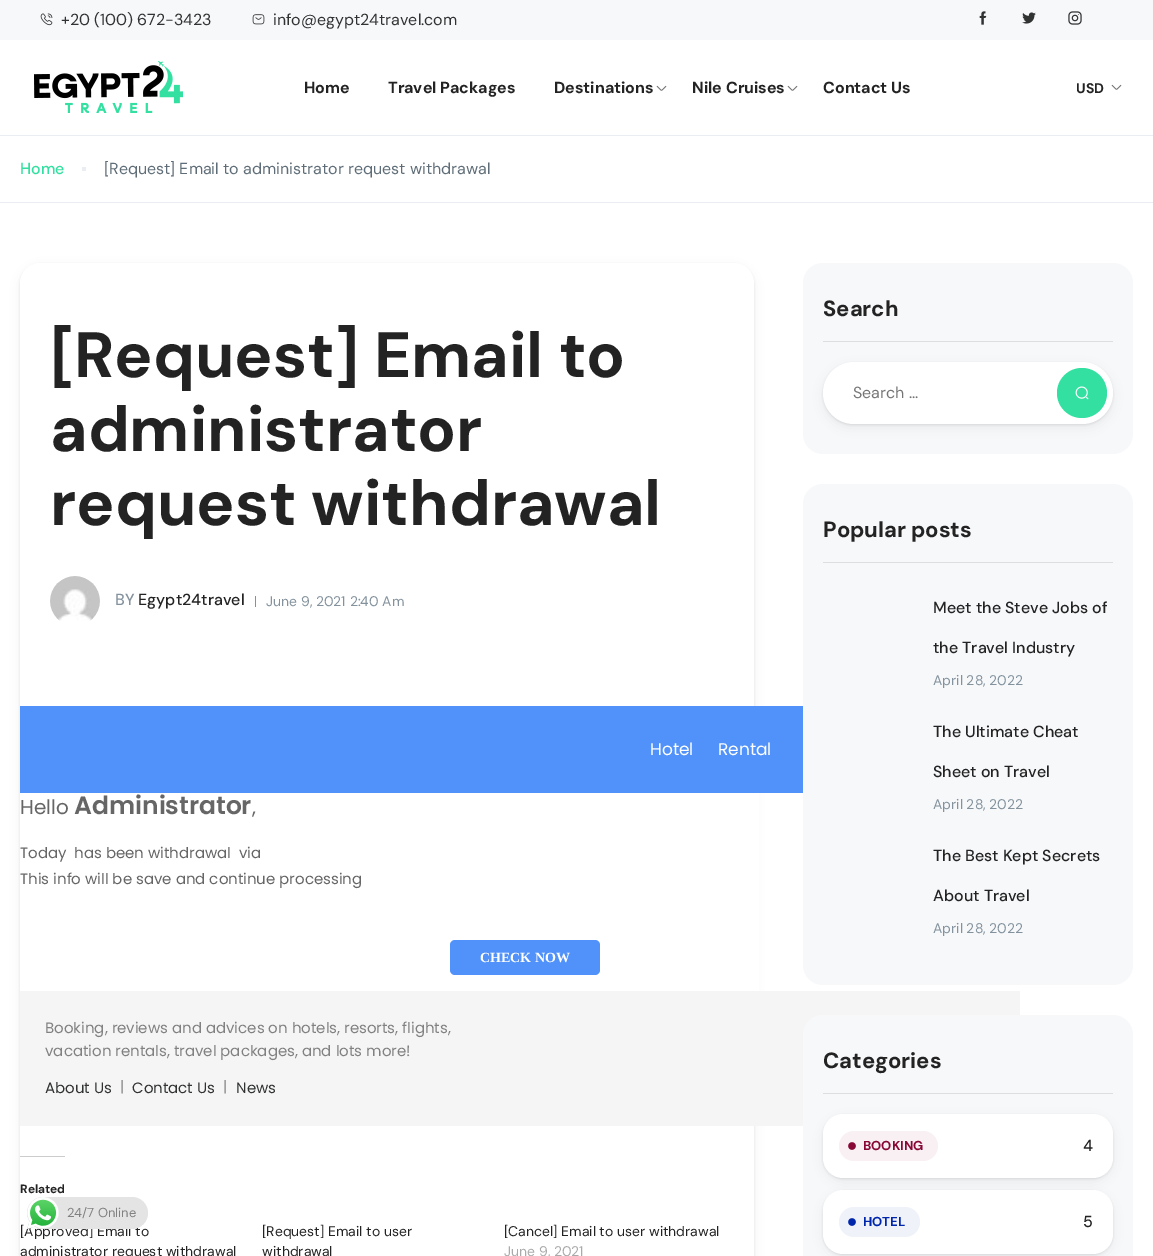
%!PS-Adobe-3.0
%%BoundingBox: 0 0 1153 1256
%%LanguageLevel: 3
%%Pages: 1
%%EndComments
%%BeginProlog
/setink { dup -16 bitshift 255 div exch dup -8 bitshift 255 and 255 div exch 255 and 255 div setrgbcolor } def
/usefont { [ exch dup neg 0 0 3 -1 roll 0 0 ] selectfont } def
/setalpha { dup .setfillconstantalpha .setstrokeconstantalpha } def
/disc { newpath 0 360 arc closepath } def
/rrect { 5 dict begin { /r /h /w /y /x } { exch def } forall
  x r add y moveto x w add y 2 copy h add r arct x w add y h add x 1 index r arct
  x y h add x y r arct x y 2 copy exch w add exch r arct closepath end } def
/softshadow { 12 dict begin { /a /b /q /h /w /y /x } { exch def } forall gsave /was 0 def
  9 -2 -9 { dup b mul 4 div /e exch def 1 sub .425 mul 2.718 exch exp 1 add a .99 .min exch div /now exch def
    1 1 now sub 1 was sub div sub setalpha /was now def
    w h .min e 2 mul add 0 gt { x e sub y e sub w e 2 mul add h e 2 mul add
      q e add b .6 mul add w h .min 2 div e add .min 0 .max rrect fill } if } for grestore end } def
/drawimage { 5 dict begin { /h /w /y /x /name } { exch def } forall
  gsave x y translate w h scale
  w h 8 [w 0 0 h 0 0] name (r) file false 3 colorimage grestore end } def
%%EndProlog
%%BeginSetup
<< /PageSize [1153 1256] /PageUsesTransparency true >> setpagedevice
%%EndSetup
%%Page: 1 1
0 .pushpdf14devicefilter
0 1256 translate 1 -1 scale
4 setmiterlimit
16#FFFFFF setink
0 0 1153 1256 rectfill
16#F7F8FA setink
0 0 1153 40 rectfill
(img1.raw) 40 13 13 13 drawimage
/DMSans-Regular 16 usefont
16#313232 setink
61 25 moveto (+20 \(100\) 672-3423) show
(img2.raw) 252 14 13 11 drawimage
273 25 moveto (info@egypt24travel.com) show
(img3.raw) 979 11 8 14 drawimage
(img4.raw) 1022 12 14 12 drawimage
(img5.raw) 1068 11 14 14 drawimage
16#EAEEF3 setink
0 135 1153 1 rectfill
(img6.raw) 34 61 149 52 drawimage
/DMSans-Bold 16 usefont
16#232323 setink
[
    [(Home) 304 93]
    [(Travel Packages) 388 93]
    [(Destinations) 554 93]
] { aload pop moveto show } forall
(img7.raw) 656 85 11 6 drawimage
692 93 moveto (Nile Cruises) show
(img7.raw) 787 85 11 6 drawimage
823 93 moveto (Contact Us) show
/DMSans-Bold 14 usefont
1076 93 moveto (USD) show
(img7.raw) 1111 84 11 6 drawimage
16#EAEEF3 setink
0 202 1153 1 rectfill
/DMSans-Medium 16 usefont
16#34E0A1 setink
20 174 moveto (Home) show
16#EAEEF3 setink
82 167 4 4 rectfill
/DMSans-Regular 16 usefont
16#5E6D77 setink
104 174 moveto ([Request] Email to administrator request withdrawal) show
16#000000 setink
20 267 734 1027 20 6 0.05 softshadow
20 264 734 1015 20 1 0.08 softshadow
16#FFFFFF setink
20 263 734 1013 20 rrect fill
/DMSans-Bold 64 usefont
16#232323 setink
[
    [([Request] Email to) 50 377]
    [(administrator) 50 451]
    [(request withdrawal) 50 525]
] { aload pop moveto show } forall
(img8.raw) 50 576 50 45 drawimage
/DMSans-Medium 16 usefont
16#83929D setink
115 605 moveto (BY) show
16#232323 setink
138 605 moveto (Egypt24travel) show
16#83929D setink
255 596 1 11 rectfill
/DMSans-Regular 14 usefont
266 606 moveto (June 9, 2021 2:40 Am) show
16#5192FA setink
20 706 783 87 rectfill
/Poppins-Regular 17 usefont
16#FFFFFF setink
650 755 moveto (Hotel) show
718 755 moveto (Rental) show
754 793 5 198 rectfill
/Poppins-Regular 20 usefont
16#666666 setink
20 814 moveto (Hello) show
/Poppins-SemiBold 25 usefont
74 814 moveto (Administrator) show
/Poppins-Regular 20 usefont
252 814 moveto (,) show
/Poppins-Regular 15 usefont
[
    [(Today) 20 858]
    [(has been withdrawal) 74 858]
    [(via) 239 858]
    [(This info will be save and continue processing) 20 884]
] { aload pop moveto show } forall
16#5192FA setink
450 940 150 35 5 rrect fill
/LiberationSerif-Bold 14 usefont
16#FFFFFF setink
480 962 moveto (CHECK NOW) show
16#F5F5F5 setink
20 991 1000 135 rectfill
/Poppins-Regular 15 usefont
16#818181 setink
45 1033 moveto (Booking, reviews and advices on hotels, resorts, flights,) show
45 1056 moveto (vacation rentals, travel packages, and lots more!) show
16#313232 setink
45 1093 moveto (About Us) show
16#818181 setink
120 1092 moveto (|) show
16#313232 setink
132 1093 moveto (Contact Us) show
16#818181 setink
223 1092 moveto (|) show
16#313232 setink
236 1093 moveto (News) show
16#CCCCCC setink
20 1156 45 1 rectfill
/DMSans-Bold 12 usefont
16#232323 setink
20 1193 moveto (Related) show
/DMSans-Regular 14 usefont
[
    [([Approved] Email to) 20 1236]
    [(administrator request withdrawal) 20 1256]
    [([Request] Email to user) 262 1236]
    [(withdrawal) 262 1256]
    [([Cancel] Email to user withdrawal) 504 1236]
] { aload pop moveto show } forall
16#AAAAAA setink
504 1256 moveto (June 9, 2021) show
16#F7F8FA setink
803 263 330 191 20 rrect fill
16#DEDEDE setink
823 341 290 1 rectfill
/DMSans-Bold 22 usefont
16#232323 setink
823 316 moveto (Search) show
16#000000 setink
823 366 290 62 31 6 0.05 softshadow
823 363 290 62 31 1 0.08 softshadow
16#FFFFFF setink
823 362 290 62 31 rrect fill
/DMSans-Regular 16 usefont
16#757575 setink
853 398 moveto (Search ...) show
16#34E0A1 setink
1082 393 25 disc fill
(img9.raw) 1075 386 14 14 drawimage
16#F7F8FA setink
803 484 330 501 20 rrect fill
16#DEDEDE setink
823 562 290 1 rectfill
/DMSans-Bold 22 usefont
16#232323 setink
823 537 moveto (Popular posts) show
/DMSans-Medium 16 usefont
933 613 moveto (Meet the Steve Jobs of) show
933 653 moveto (the Travel Industry) show
/DMSans-Regular 14 usefont
16#83929D setink
933 685 moveto (April 28, 2022) show
/DMSans-Medium 16 usefont
16#232323 setink
933 737 moveto (The Ultimate Cheat) show
933 777 moveto (Sheet on Travel) show
/DMSans-Regular 14 usefont
16#83929D setink
933 809 moveto (April 28, 2022) show
/DMSans-Medium 16 usefont
16#232323 setink
933 861 moveto (The Best Kept Secrets) show
933 901 moveto (About Travel) show
/DMSans-Regular 14 usefont
16#83929D setink
933 933 moveto (April 28, 2022) show
16#F7F8FA setink
803 1015 330 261 20 rrect fill
16#DEDEDE setink
823 1093 290 1 rectfill
/DMSans-Bold 22 usefont
16#232323 setink
823 1068 moveto (Categories) show
16#000000 setink
823 1118 290 64 20 6 0.05 softshadow
823 1115 290 64 20 1 0.08 softshadow
16#FFFFFF setink
823 1114 290 64 20 rrect fill
16#F8F0F3 setink
839 1131 99 30 15 rrect fill
(img10.raw) 848 1142 8 8 drawimage
/DMSans-Bold 13 usefont
16#880735 setink
863 1150 moveto (BOOKING) show
/DMSans-Medium 16 usefont
16#232323 setink
1083 1151 moveto (4) show
16#000000 setink
823 1194 290 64 20 6 0.05 softshadow
823 1191 290 64 20 1 0.08 softshadow
16#FFFFFF setink
823 1190 290 64 20 rrect fill
16#F0F2FA setink
839 1207 81 30 15 rrect fill
(img11.raw) 848 1218 8 8 drawimage
/DMSans-Bold 13 usefont
16#0026AB setink
863 1226 moveto (HOTEL) show
/DMSans-Medium 16 usefont
16#232323 setink
1083 1227 moveto (5) show
16#E4E4E4 setink
27 1197 121 32 16 rrect fill
(img12.raw) 27 1197 32 32 drawimage
/DMSans-Regular 13 usefont
16#818181 setink
67 1217 moveto (24/7 Online) show
.poppdf14devicefilter showpage
%%EOF
